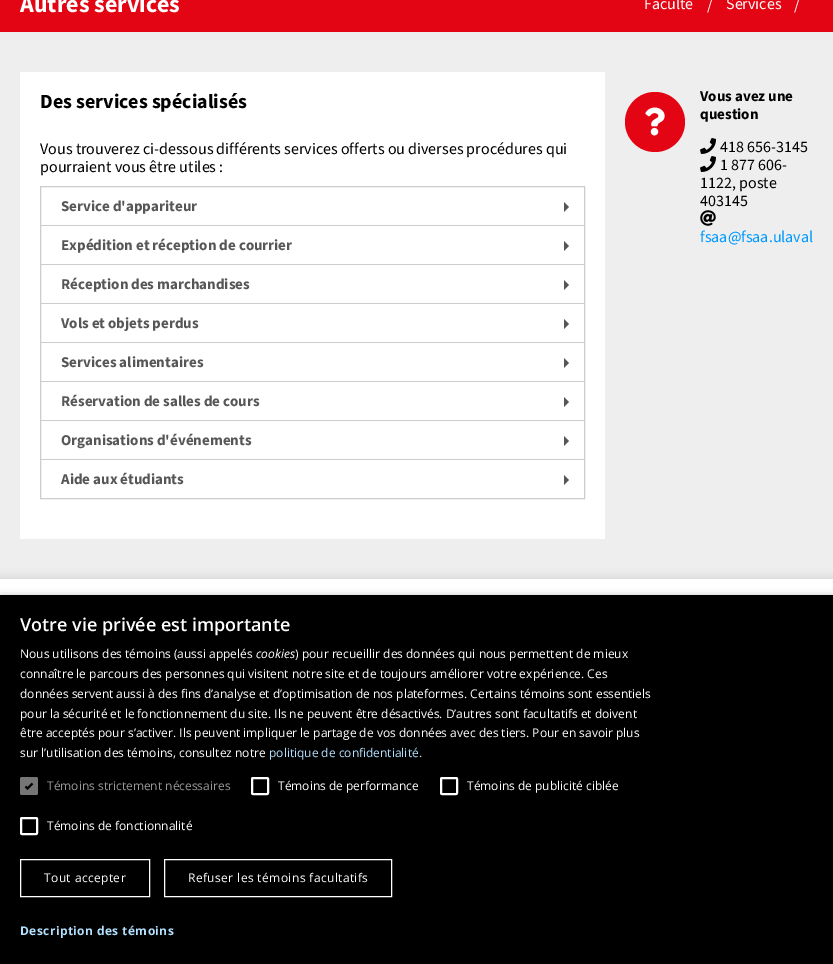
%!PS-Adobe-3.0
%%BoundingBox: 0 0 833 964
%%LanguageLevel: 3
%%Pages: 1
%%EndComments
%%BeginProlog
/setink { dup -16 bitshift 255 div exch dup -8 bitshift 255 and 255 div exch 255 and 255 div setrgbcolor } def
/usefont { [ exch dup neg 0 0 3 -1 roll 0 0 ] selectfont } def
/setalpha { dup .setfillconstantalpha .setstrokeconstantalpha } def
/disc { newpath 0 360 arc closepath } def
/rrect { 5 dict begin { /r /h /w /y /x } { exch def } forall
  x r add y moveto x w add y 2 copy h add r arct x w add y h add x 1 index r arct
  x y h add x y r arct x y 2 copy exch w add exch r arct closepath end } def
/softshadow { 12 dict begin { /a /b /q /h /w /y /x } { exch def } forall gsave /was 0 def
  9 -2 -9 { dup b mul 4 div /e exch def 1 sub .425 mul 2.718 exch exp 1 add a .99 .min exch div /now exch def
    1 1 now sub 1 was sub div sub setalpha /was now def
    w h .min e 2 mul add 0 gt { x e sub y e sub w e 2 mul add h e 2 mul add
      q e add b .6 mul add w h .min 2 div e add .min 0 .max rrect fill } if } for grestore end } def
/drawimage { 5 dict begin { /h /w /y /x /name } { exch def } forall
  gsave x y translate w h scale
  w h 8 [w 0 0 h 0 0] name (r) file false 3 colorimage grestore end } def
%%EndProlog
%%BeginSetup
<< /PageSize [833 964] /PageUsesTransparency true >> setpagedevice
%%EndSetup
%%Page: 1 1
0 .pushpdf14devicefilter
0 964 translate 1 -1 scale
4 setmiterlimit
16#EEEEEE setink
0 0 833 964 rectfill
16#E30513 setink
0 0 833 32 rectfill
/SourceSans3-Bold 24 usefont
16#FFFFFF setink
20 12 moveto (Autres services) show
/SourceSans3-Regular 16 usefont
[
    [(Faculté) 644 9]
    [(/) 707 10]
    [(Services) 726 9]
    [(/) 794 10]
] { aload pop moveto show } forall
20 72 585 467 rectfill
/SourceSans3-Bold 20 usefont
16#000000 setink
40 108 moveto (Des services spécialisés) show
/SourceSans3-Regular 16 usefont
40 154 moveto (Vous trouverez ci-dessous différents services offerts ou diverses procédures qui) show
40 172 moveto (pourraient vous être utiles :) show
16#CCCCCC setink
40.5 186.5 544 312 rectstroke
/SourceSans3-Bold 15 usefont
16#565656 setink
61 211 moveto (Service d'appariteur) show
564 212 moveto 564 202 lineto 569 207 lineto closepath fill
16#CCCCCC setink
41 225 543 1 rectfill
16#565656 setink
61 250 moveto (Expédition et réception de courrier) show
564 251 moveto 564 241 lineto 569 246 lineto closepath fill
16#CCCCCC setink
41 264 543 1 rectfill
16#565656 setink
61 289 moveto (Réception des marchandises) show
564 290 moveto 564 280 lineto 569 285 lineto closepath fill
16#CCCCCC setink
41 303 543 1 rectfill
16#565656 setink
61 328 moveto (Vols et objets perdus) show
564 329 moveto 564 319 lineto 569 324 lineto closepath fill
16#CCCCCC setink
41 342 543 1 rectfill
16#565656 setink
61 367 moveto (Services alimentaires) show
564 368 moveto 564 358 lineto 569 363 lineto closepath fill
16#CCCCCC setink
41 381 543 1 rectfill
16#565656 setink
61 406 moveto (Réservation de salles de cours) show
564 407 moveto 564 397 lineto 569 402 lineto closepath fill
16#CCCCCC setink
41 420 543 1 rectfill
16#565656 setink
61 445 moveto (Organisations d'événements) show
564 446 moveto 564 436 lineto 569 441 lineto closepath fill
16#CCCCCC setink
41 459 543 1 rectfill
16#565656 setink
61 484 moveto (Aide aux étudiants) show
564 485 moveto 564 475 lineto 569 480 lineto closepath fill
16#E30513 setink
655 122 30 disc fill
(img1.raw) 645 107 20 29 drawimage
16#000000 setink
700 101 moveto (Vous avez une) show
700 119 moveto (question) show
(img2.raw) 700 138 16 16 drawimage
/SourceSans3-Regular 16 usefont
720 152 moveto (418 656-3145) show
(img2.raw) 700 156 16 16 drawimage
[
    [(1 877 606-) 720 170]
    [(1122, poste) 700 188]
    [(403145) 700 206]
] { aload pop moveto show } forall
(img3.raw) 700 210 16 16 drawimage
16#0099FF setink
700 242 moveto (fsaa@fsaa.ulaval) show
16#000000 setink
0 579 833 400 0 5 0.15 softshadow
16#FFFFFF setink
0 579 833 16 rectfill
16#000000 setink
1 597 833 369 0 4 0.35 softshadow
0 595 833 369 rectfill
/OpenSans-SemiBold 18 usefont
16#FFFFFF setink
20 631 moveto (Votre vie privée est importante) show
/OpenSans-Regular 12 usefont
20 658 moveto (Nous utilisons des témoins \(aussi appelés) show
/OpenSans-Italic 12 usefont
256 658 moveto (cookies) show
/OpenSans-Regular 12 usefont
[
    [(\) pour recueillir des données qui nous permettent de mieux) 295 658]
    [(connaître le parcours des personnes qui visitent notre site et de toujours améliorer votre expérience. Ces) 20 678]
    [(données servent aussi à des fins d’analyse et d’optimisation de nos plateformes. Certains témoins sont essentiels) 20 698]
    [(pour la sécurité et le fonctionnement du site. Ils ne peuvent être désactivés. D’autres sont facultatifs et doivent) 20 718]
    [(être acceptés pour s’activer. Ils peuvent impliquer le partage de vos données avec des tiers. Pour en savoir plus) 20 737]
    [(sur l’utilisation des témoins, consultez notre) 20 757]
] { aload pop moveto show } forall
16#B2E0FF setink
269 757 moveto (politique de confidentialité.) show
16#767676 setink
20 777 18 18 2 rrect fill
16#000000 setink
1.8 setlinewidth
25.5 786.5 moveto 27.5 788.5 lineto 32.5 783.5 lineto stroke
16#999999 setink
47 790 moveto (Témoins strictement nécessaires) show
16#FFFFFF setink
2 setlinewidth
252 778 16 16 1 rrect stroke
278 790 moveto (Témoins de performance) show
441 778 16 16 1 rrect stroke
467 790 moveto (Témoins de publicité ciblée) show
21 818 16 16 1 rrect stroke
47 830 moveto (Témoins de fonctionnalité) show
1 setlinewidth
20.5 859.5 129 37 rectstroke
44 882 moveto 0.4 0 (Tout accepter) ashow
164.5 859.5 227 37 rectstroke
188 882 moveto 0.4 0 (Refuser les témoins facultatifs) ashow
/OpenSans-Bold 12 usefont
16#B2E0FF setink
20 935 moveto 0.4 0 (Description des témoins) ashow
.poppdf14devicefilter showpage
%%EOF
